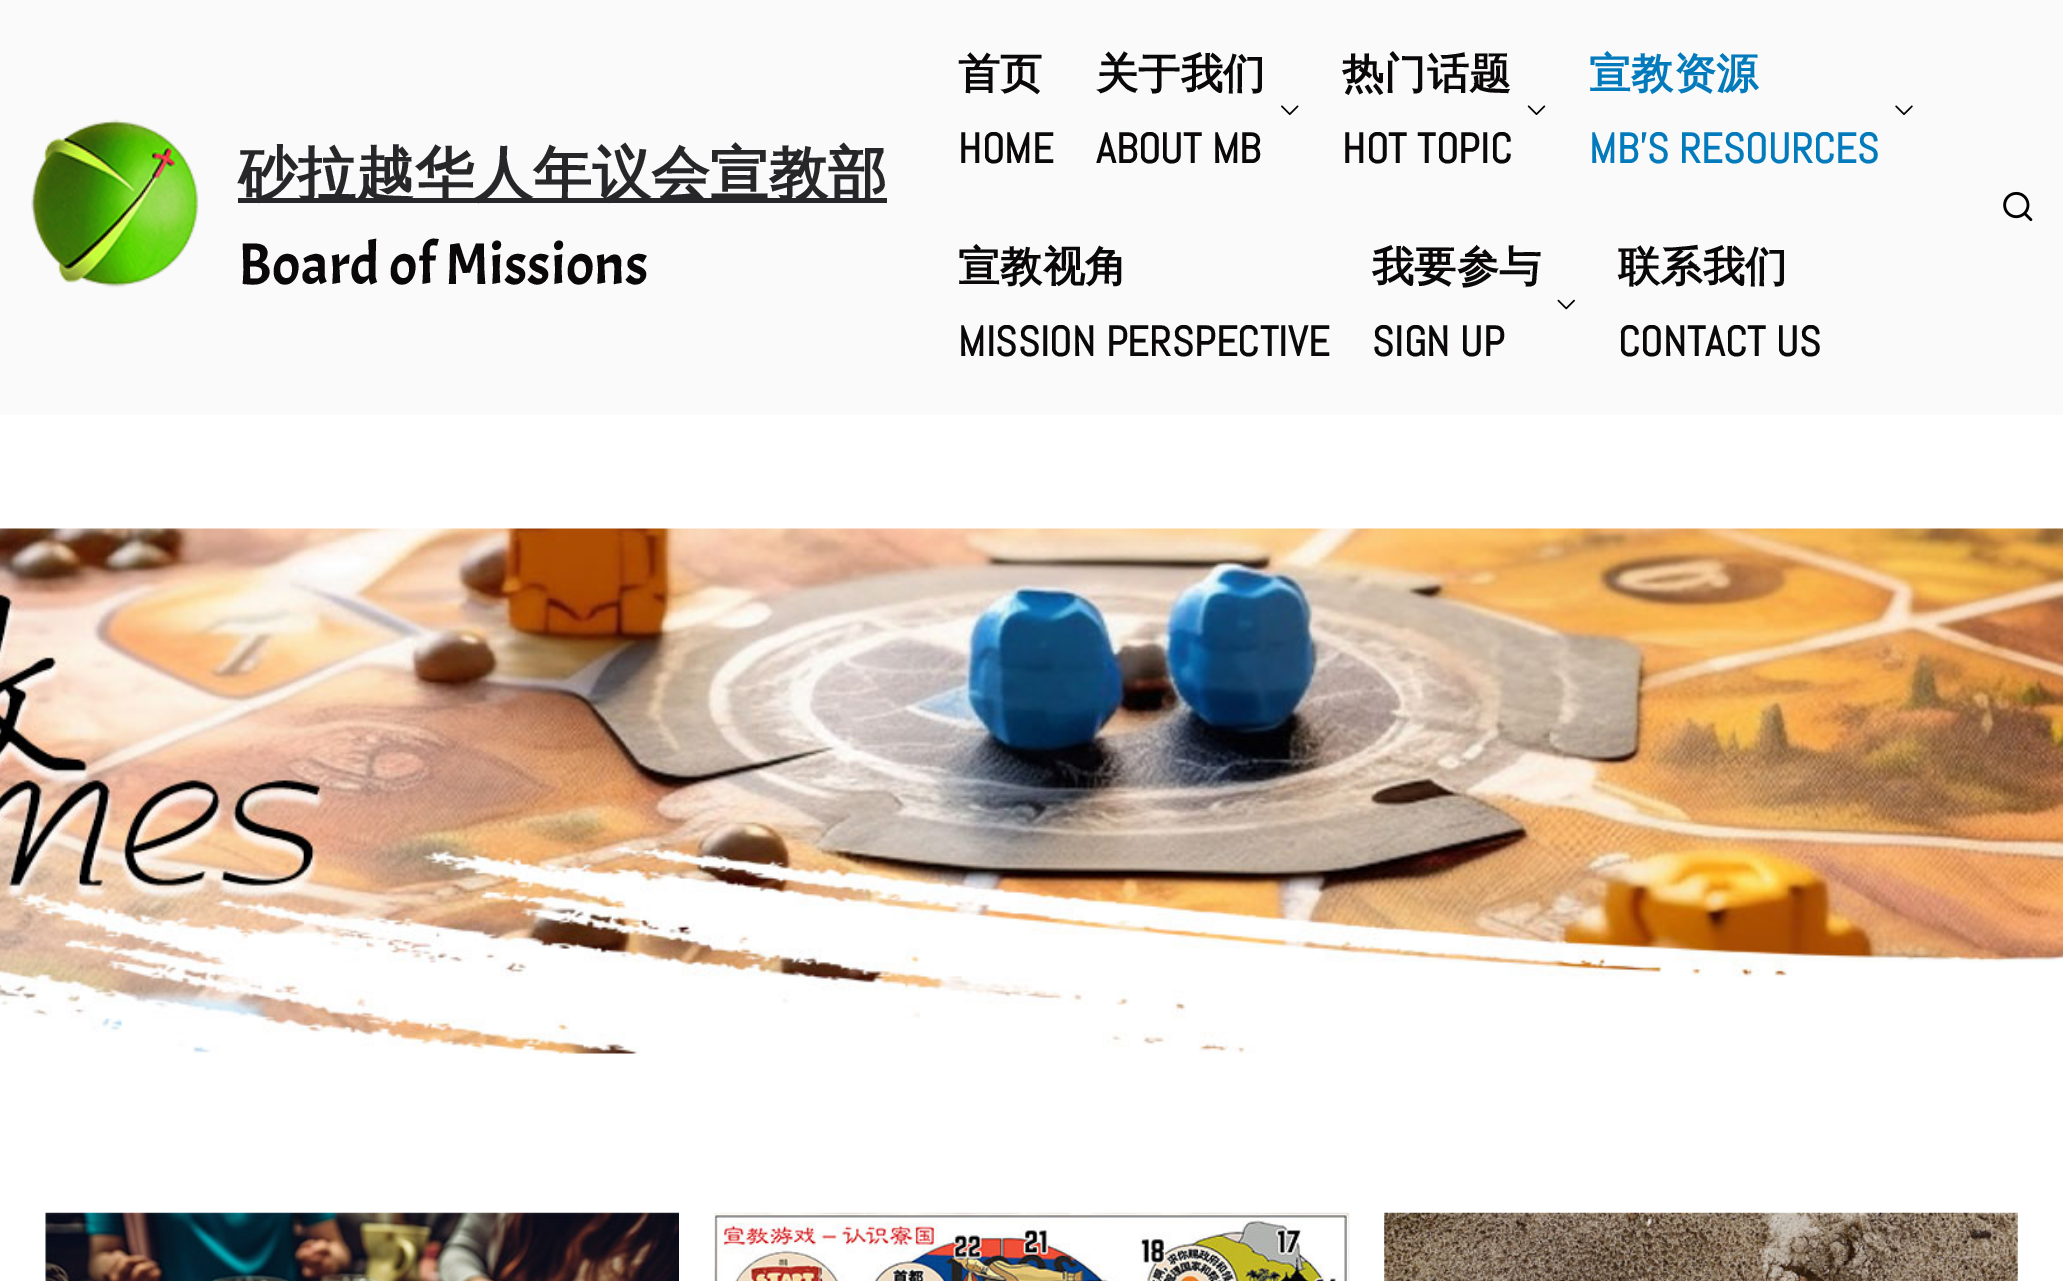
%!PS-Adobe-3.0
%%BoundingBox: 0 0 2063 1281
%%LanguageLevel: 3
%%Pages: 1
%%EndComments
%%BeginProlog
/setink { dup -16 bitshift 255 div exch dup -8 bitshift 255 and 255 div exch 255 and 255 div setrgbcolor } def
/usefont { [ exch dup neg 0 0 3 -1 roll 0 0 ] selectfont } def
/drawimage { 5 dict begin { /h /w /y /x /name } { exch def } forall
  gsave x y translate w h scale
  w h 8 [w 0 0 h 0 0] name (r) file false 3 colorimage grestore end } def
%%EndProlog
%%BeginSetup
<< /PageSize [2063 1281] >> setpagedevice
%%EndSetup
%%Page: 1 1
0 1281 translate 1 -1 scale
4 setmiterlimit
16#FAFAFA setink
0 0 2063 1281 rectfill
(img1.raw) 31 119 168 169 drawimage
16#27272A setink
238 198 649 5 rectfill
/WenQuanYiZenHei-Bold 58.75 usefont
238 194 moveto 0.3 0 (砂拉越华人年议会宣教部) ashow
/Acme-Regular 58.75 usefont
16#0A0808 setink
238 284 moveto 0.3 0 (Board of Missions) ashow
/WenQuanYiZenHei-Bold 42 usefont
958 88 moveto 0.3 0 (首页) ashow
/Abel-Bold 42 usefont
958 163 moveto 0.3 0 (HOME) ashow
/WenQuanYiZenHei-Bold 42 usefont
1096 88 moveto 0.3 0 (关于我们) ashow
(img2.raw) 1281 105 18 10 drawimage
/Abel-Bold 42 usefont
1096 163 moveto 0.3 0 (ABOUT MB) ashow
/WenQuanYiZenHei-Bold 42 usefont
1342 88 moveto 0.3 0 (热门话题) ashow
(img3.raw) 1527 105 19 10 drawimage
/Abel-Bold 42 usefont
1342 163 moveto 0.3 0 (HOT TOPIC) ashow
/WenQuanYiZenHei-Bold 42 usefont
16#027ABB setink
1589 88 moveto 0.3 0 (宣教资源) ashow
(img4.raw) 1895 105 18 10 drawimage
/Abel-Bold 42 usefont
1589 163 moveto 0.3 0 (MB’S RESOURCES) ashow
/WenQuanYiZenHei-Bold 42 usefont
16#0A0808 setink
958 281 moveto 0.3 0 (宣教视角) ashow
/Abel-Bold 42 usefont
958 356 moveto 0.3 0 (MISSION PERSPECTIVE) ashow
/WenQuanYiZenHei-Bold 42 usefont
1372 281 moveto 0.3 0 (我要参与) ashow
(img5.raw) 1557 299 18 11 drawimage
/Abel-Bold 42 usefont
1372 356 moveto 0.3 0 (SIGN UP) ashow
/WenQuanYiZenHei-Bold 42 usefont
1618 281 moveto 0.3 0 (联系我们) ashow
/Abel-Bold 42 usefont
1618 356 moveto 0.3 0 (CONTACT US) ashow
(img6.raw) 2003 191 30 31 drawimage
16#FFFFFF setink
0 415 2063 866 rectfill
(img7.raw) 0 528 2063 526 drawimage
(img8.raw) 45 1212 634 69 drawimage
(img9.raw) 714 1212 636 69 drawimage
(img10.raw) 1384 1212 634 69 drawimage
showpage
%%EOF
